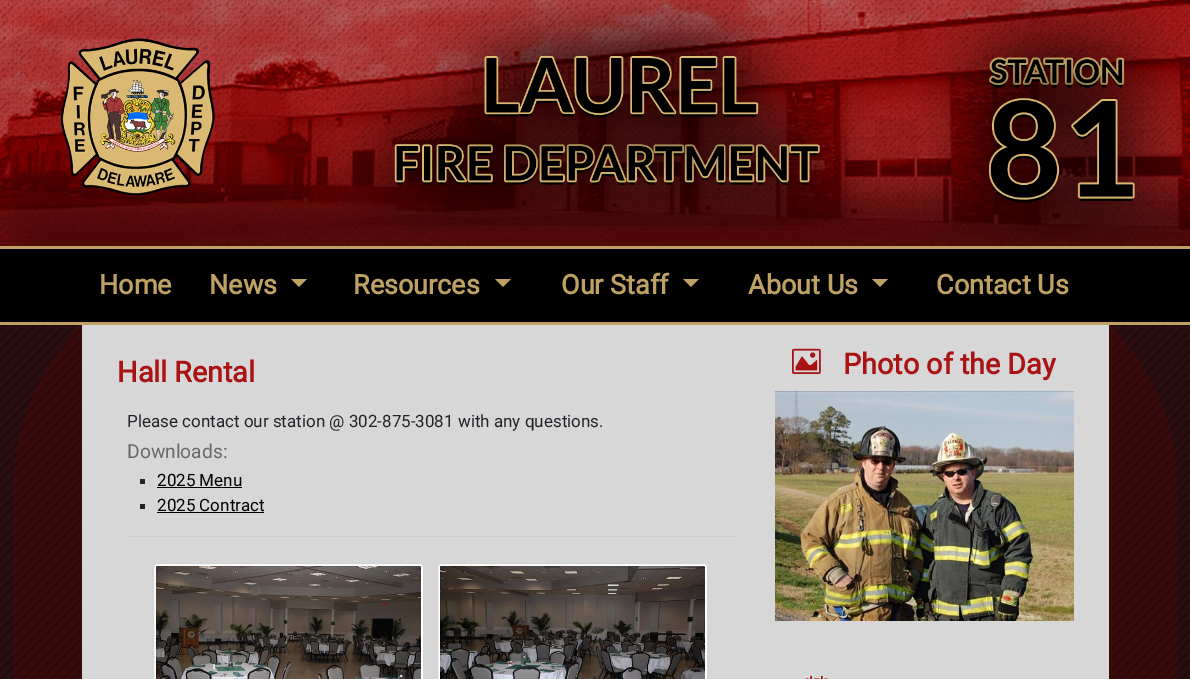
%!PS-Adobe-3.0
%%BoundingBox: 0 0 1190 679
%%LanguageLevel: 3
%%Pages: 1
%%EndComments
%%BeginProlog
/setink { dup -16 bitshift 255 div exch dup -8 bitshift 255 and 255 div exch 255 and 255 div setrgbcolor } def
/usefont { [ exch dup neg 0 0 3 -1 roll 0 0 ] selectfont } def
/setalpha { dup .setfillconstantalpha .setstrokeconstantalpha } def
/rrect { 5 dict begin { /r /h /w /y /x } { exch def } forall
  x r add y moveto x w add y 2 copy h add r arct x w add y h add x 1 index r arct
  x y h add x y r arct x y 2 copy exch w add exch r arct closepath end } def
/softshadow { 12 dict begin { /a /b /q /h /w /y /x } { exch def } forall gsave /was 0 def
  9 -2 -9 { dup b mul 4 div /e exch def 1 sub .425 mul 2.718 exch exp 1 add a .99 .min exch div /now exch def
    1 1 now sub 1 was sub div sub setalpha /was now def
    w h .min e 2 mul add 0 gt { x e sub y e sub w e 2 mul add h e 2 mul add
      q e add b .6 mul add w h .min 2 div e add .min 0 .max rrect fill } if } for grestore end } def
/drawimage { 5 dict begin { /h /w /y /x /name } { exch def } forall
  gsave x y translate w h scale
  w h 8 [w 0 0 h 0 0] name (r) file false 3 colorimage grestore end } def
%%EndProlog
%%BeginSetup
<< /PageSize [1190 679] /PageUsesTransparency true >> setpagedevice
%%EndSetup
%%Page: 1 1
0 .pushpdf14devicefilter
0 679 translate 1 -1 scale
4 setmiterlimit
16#FFFFFF setink
0 0 1190 679 rectfill
(img1.raw) 0 325 1190 354 drawimage
(img2.raw) 0 0 1190 246 drawimage
16#580202 setink
82 325 1027 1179 0 275 1 softshadow
(img3.raw) 61 38 154 158 drawimage
(img4.raw) 335 0 540 226 drawimage
(img5.raw) 919 0 271 246 drawimage
[
    [0 249 1190 73 16#000000]
    [0 246 1190 3 16#BEA163]
    [0 322 1190 3 16#BEA163]
] { aload pop setink rectfill } forall
/Roboto-Bold 27 usefont
99 294 moveto (Home) show
209 294 moveto (News) show
291 279 moveto 307 279 lineto 299 287 lineto closepath fill
353 294 moveto (Resources) show
495 279 moveto 511 279 lineto 503 287 lineto closepath fill
561 294 moveto (Our Staff) show
683 279 moveto 699 279 lineto 691 287 lineto closepath fill
748 294 moveto (About Us) show
872 279 moveto 888 279 lineto 880 287 lineto closepath fill
936 294 moveto (Contact Us) show
16#D7D7D7 setink
82 325 1027 354 rectfill
/Roboto-Bold 28.75 usefont
16#AA1313 setink
117 382 moveto (Hall Rental) show
/Roboto-Regular 17 usefont
16#212529 setink
127 427 moveto (Please contact our station @ 302-875-3081 with any questions.) show
/Roboto-Regular 19.25 usefont
16#696969 setink
127 458 moveto (Downloads:) show
16#212529 setink
140 479 5 5 rectfill
/Roboto-Regular 17 usefont
16#000000 setink
157 486 moveto (2025 Menu) show
157 487 85 1 rectfill
16#212529 setink
140 504 5 5 rectfill
16#000000 setink
157 511 moveto (2025 Contract) show
157 512 107 1 rectfill
16#CCCCCC setink
127 536 608 1 rectfill
16#FFFFFF setink
153 563 271 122 4 rrect gsave fill grestore
16#D5D5D5 setink
2 setlinewidth
stroke
(img6.raw) 156 566 265 113 drawimage
16#FFFFFF setink
437 563 271 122 4 rrect gsave fill grestore
16#D5D5D5 setink
stroke
(img7.raw) 440 566 265 113 drawimage
(img8.raw) 792 348 29 26 drawimage
/Roboto-Bold 28.75 usefont
16#AA1313 setink
843 374 moveto (Photo of the Day) show
(img9.raw) 775 391 299 230 drawimage
(img10.raw) 805 675 23 4 drawimage
.poppdf14devicefilter showpage
%%EOF
